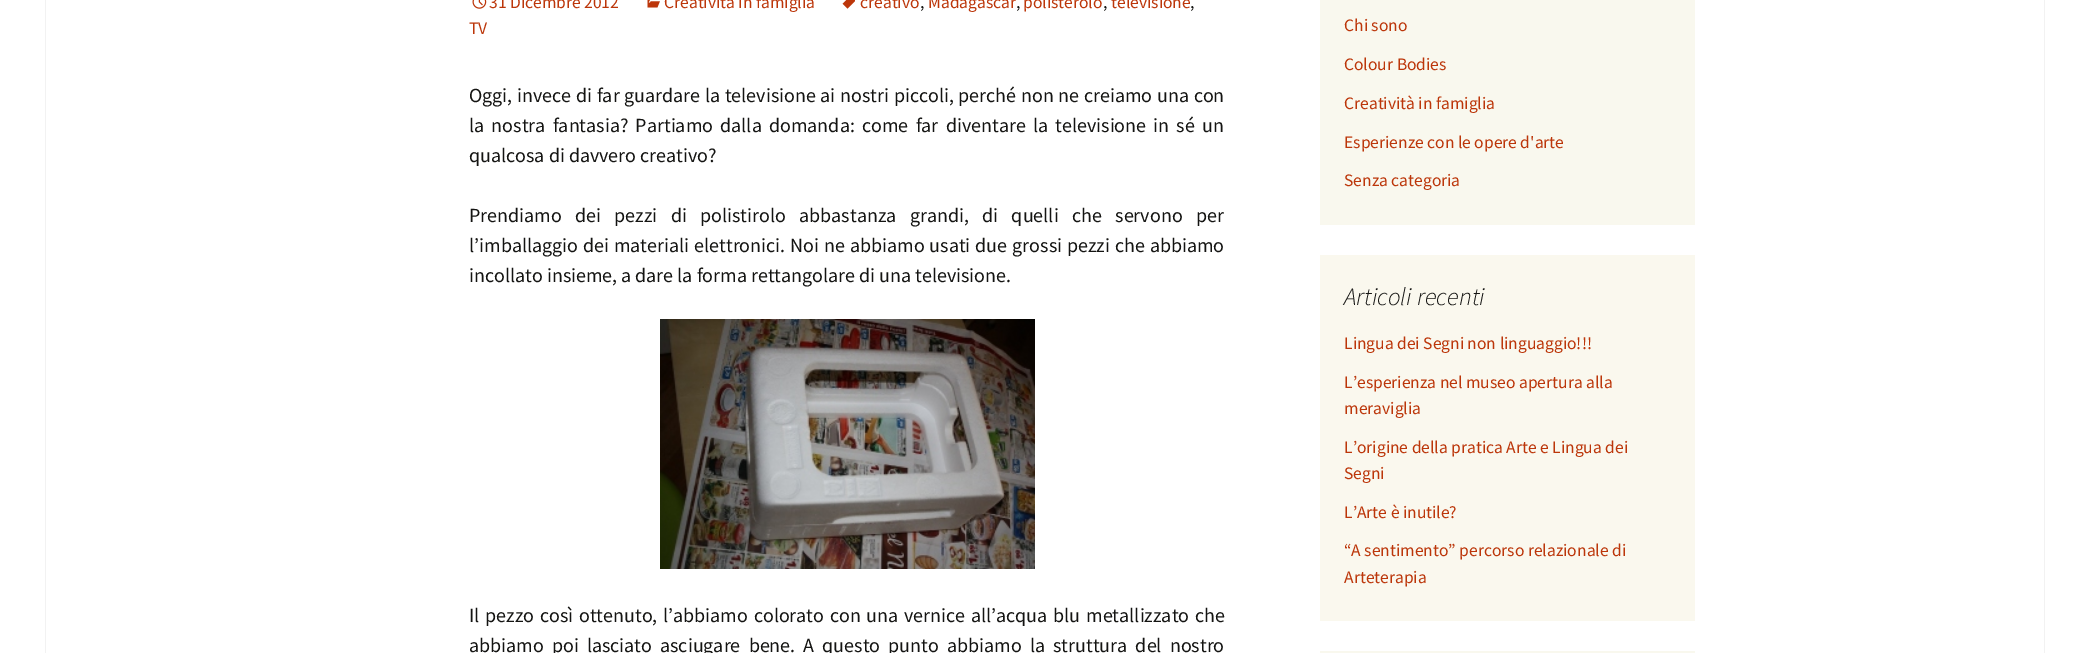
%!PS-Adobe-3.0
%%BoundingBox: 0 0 2088 653
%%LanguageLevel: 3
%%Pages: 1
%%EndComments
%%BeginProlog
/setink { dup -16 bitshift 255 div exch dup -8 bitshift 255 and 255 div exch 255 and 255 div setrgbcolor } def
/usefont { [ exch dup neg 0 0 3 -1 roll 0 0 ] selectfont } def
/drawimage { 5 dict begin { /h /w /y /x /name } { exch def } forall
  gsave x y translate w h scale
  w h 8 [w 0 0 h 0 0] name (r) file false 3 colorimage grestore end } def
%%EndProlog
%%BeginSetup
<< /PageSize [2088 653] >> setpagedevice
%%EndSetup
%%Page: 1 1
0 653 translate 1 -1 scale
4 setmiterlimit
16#FFFFFF setink
0 0 2088 653 rectfill
16#F2F2F2 setink
2044 0 1 653 rectfill
45 0 1 653 rectfill
(img1.raw) 842 0 13 9 drawimage
/SourceSansPro-Regular 17.5 usefont
16#BC360A setink
860 8 moveto (creativo) show
16#141412 setink
920 8 moveto (,) show
16#BC360A setink
928 8 moveto (Madagascar) show
16#141412 setink
1016 8 moveto (,) show
16#BC360A setink
1023 8 moveto (polisterolo) show
16#141412 setink
1103 8 moveto (,) show
16#BC360A setink
1111 8 moveto (televisione) show
16#141412 setink
1190 8 moveto (,) show
16#BC360A setink
469 34 moveto (TV) show
(img2.raw) 472 0 15 9 drawimage
489 8 moveto (31 Dicembre 2012) show
(img3.raw) 647 0 13 8 drawimage
664 8 moveto (Creatività in famiglia) show
/SourceSansPro-Regular 20 usefont
16#141412 setink
469 102 moveto 0.7 0 32 (Oggi, invece di far guardare la televisione ai nostri piccoli, perché non ne creiamo una con) widthshow
469 132 moveto 3.25 0 32 (la nostra fantasia? Partiamo dalla domanda: come far diventare la televisione in sé un) widthshow
469 162 moveto (qualcosa di davvero creativo?) show
469 222 moveto 9.4 0 32 (Prendiamo dei pezzi di polistirolo abbastanza grandi, di quelli che servono per) widthshow
469 252 moveto 1 0 32 (l’imballaggio dei materiali elettronici. Noi ne abbiamo usati due grossi pezzi che abbiamo) widthshow
469 282 moveto (incollato insieme, a dare la forma rettangolare di una televisione.) show
(img4.raw) 660 319 375 250 drawimage
469 622 moveto 1.75 0 32 (Il pezzo così ottenuto, l’abbiamo colorato con una vernice all’acqua blu metallizzato che) widthshow
469 652 moveto 4.1 0 32 (abbiamo poi lasciato asciugare bene. A questo punto abbiamo la struttura del nostro) widthshow
16#F9F8EE setink
1320 0 375 225 rectfill
/SourceSansPro-Regular 17.5 usefont
16#BC360A setink
[
    [(Chi sono) 1344 31]
    [(Colour Bodies) 1344 70]
    [(Creatività in famiglia) 1344 109]
    [(Esperienze con le opere d'arte) 1344 148]
    [(Senza categoria) 1344 186]
] { aload pop moveto show } forall
16#FAF8EE setink
1320 255 375 366 rectfill
/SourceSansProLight-LightItalic 25 usefont
16#141412 setink
1344 305 moveto (Articoli recenti) show
/SourceSansPro-Regular 17.5 usefont
16#BC360A setink
[
    [(Lingua dei Segni non linguaggio!!!) 1344 349]
    [(L’esperienza nel museo apertura alla) 1344 388]
    [(meraviglia) 1344 414]
    [(L’origine della pratica Arte e Lingua dei) 1344 453]
    [(Segni) 1344 479]
    [(L’Arte è inutile?) 1344 518]
    [(“A sentimento” percorso relazionale di) 1344 556]
    [(Arteterapia) 1344 583]
] { aload pop moveto show } forall
16#F9F8EE setink
1320 651 375 2 rectfill
showpage
%%EOF
